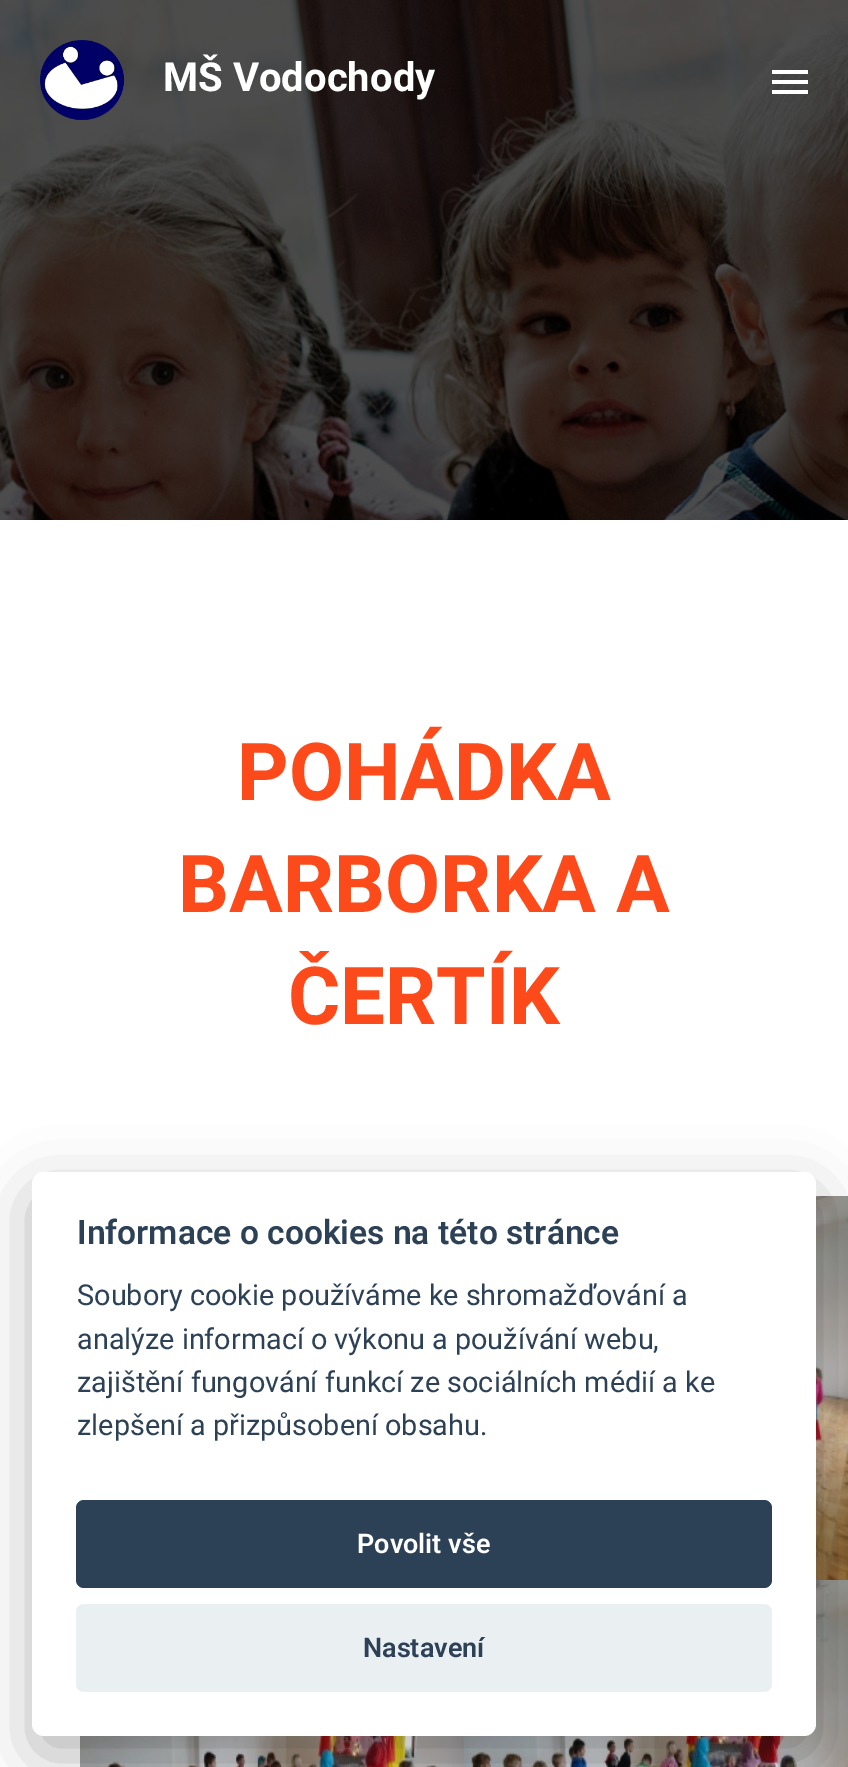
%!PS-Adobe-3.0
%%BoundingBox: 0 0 848 1767
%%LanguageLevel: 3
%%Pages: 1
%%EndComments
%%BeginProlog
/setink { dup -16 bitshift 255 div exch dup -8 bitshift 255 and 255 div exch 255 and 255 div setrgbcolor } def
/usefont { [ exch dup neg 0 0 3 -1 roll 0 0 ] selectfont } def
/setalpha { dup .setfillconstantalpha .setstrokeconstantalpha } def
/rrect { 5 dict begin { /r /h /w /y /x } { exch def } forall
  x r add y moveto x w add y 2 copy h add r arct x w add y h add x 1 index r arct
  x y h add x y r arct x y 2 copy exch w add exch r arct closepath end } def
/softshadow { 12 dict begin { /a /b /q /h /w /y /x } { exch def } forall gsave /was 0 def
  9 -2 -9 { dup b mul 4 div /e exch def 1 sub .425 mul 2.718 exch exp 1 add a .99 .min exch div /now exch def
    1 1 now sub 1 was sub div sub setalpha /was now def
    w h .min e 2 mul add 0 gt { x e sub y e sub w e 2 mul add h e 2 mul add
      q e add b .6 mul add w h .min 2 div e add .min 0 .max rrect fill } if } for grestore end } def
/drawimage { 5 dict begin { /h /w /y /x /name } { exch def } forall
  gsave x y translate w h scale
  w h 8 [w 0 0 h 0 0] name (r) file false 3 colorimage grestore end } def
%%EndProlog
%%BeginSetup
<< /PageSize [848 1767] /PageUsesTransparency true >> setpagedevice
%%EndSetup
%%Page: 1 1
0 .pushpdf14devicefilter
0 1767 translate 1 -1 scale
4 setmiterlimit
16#FFFFFF setink
0 0 848 1767 rectfill
(img1.raw) 0 0 848 520 drawimage
(img2.raw) 40 40 84 80 drawimage
/Heebo-Bold 40 usefont
163 91 moveto (MŠ Vodochody) show
[
    [772 80 36 4 16#FFFFFF]
    [772 70 36 4 16#FFFFFF]
    [772 90 36 4 16#FFFFFF]
] { aload pop setink rectfill } forall
/Heebo-Bold 80 usefont
16#FC4A1A setink
[
    [(POHÁDKA) 237 800]
    [(BARBORKA A) 178 912]
    [(ČERTÍK) 288 1024]
] { aload pop moveto show } forall
(img3.raw) 816 1196 32 384 drawimage
(img4.raw) 80 1736 384 31 drawimage
(img5.raw) 464 1580 384 187 drawimage
16#020203 setink
32 1192 784 564 12 30 0.28 softshadow
16#FFFFFF setink
32 1172 784 564 12 rrect fill
/Roboto-SemiBold 33.6 usefont
16#2D4156 setink
77 1244 moveto (Informace o cookies na této stránce) show
/Roboto-Regular 28.8 usefont
[
    [(Soubory cookie používáme ke shromažďování a) 77 1305]
    [(analýze informací o výkonu a používání webu,) 77 1349]
    [(zajištění fungování funkcí ze sociálních médií a ke) 77 1392]
    [(zlepšení a přizpůsobení obsahu.) 77 1435]
] { aload pop moveto show } forall
76 1500 696 88 8 rrect fill
/Roboto-SemiBold 27 usefont
16#FFFFFF setink
357 1553 moveto (Povolit vše) show
16#EAEFF2 setink
76 1604 696 88 8 rrect fill
16#2D4156 setink
363 1657 moveto (Nastavení) show
.poppdf14devicefilter showpage
%%EOF
